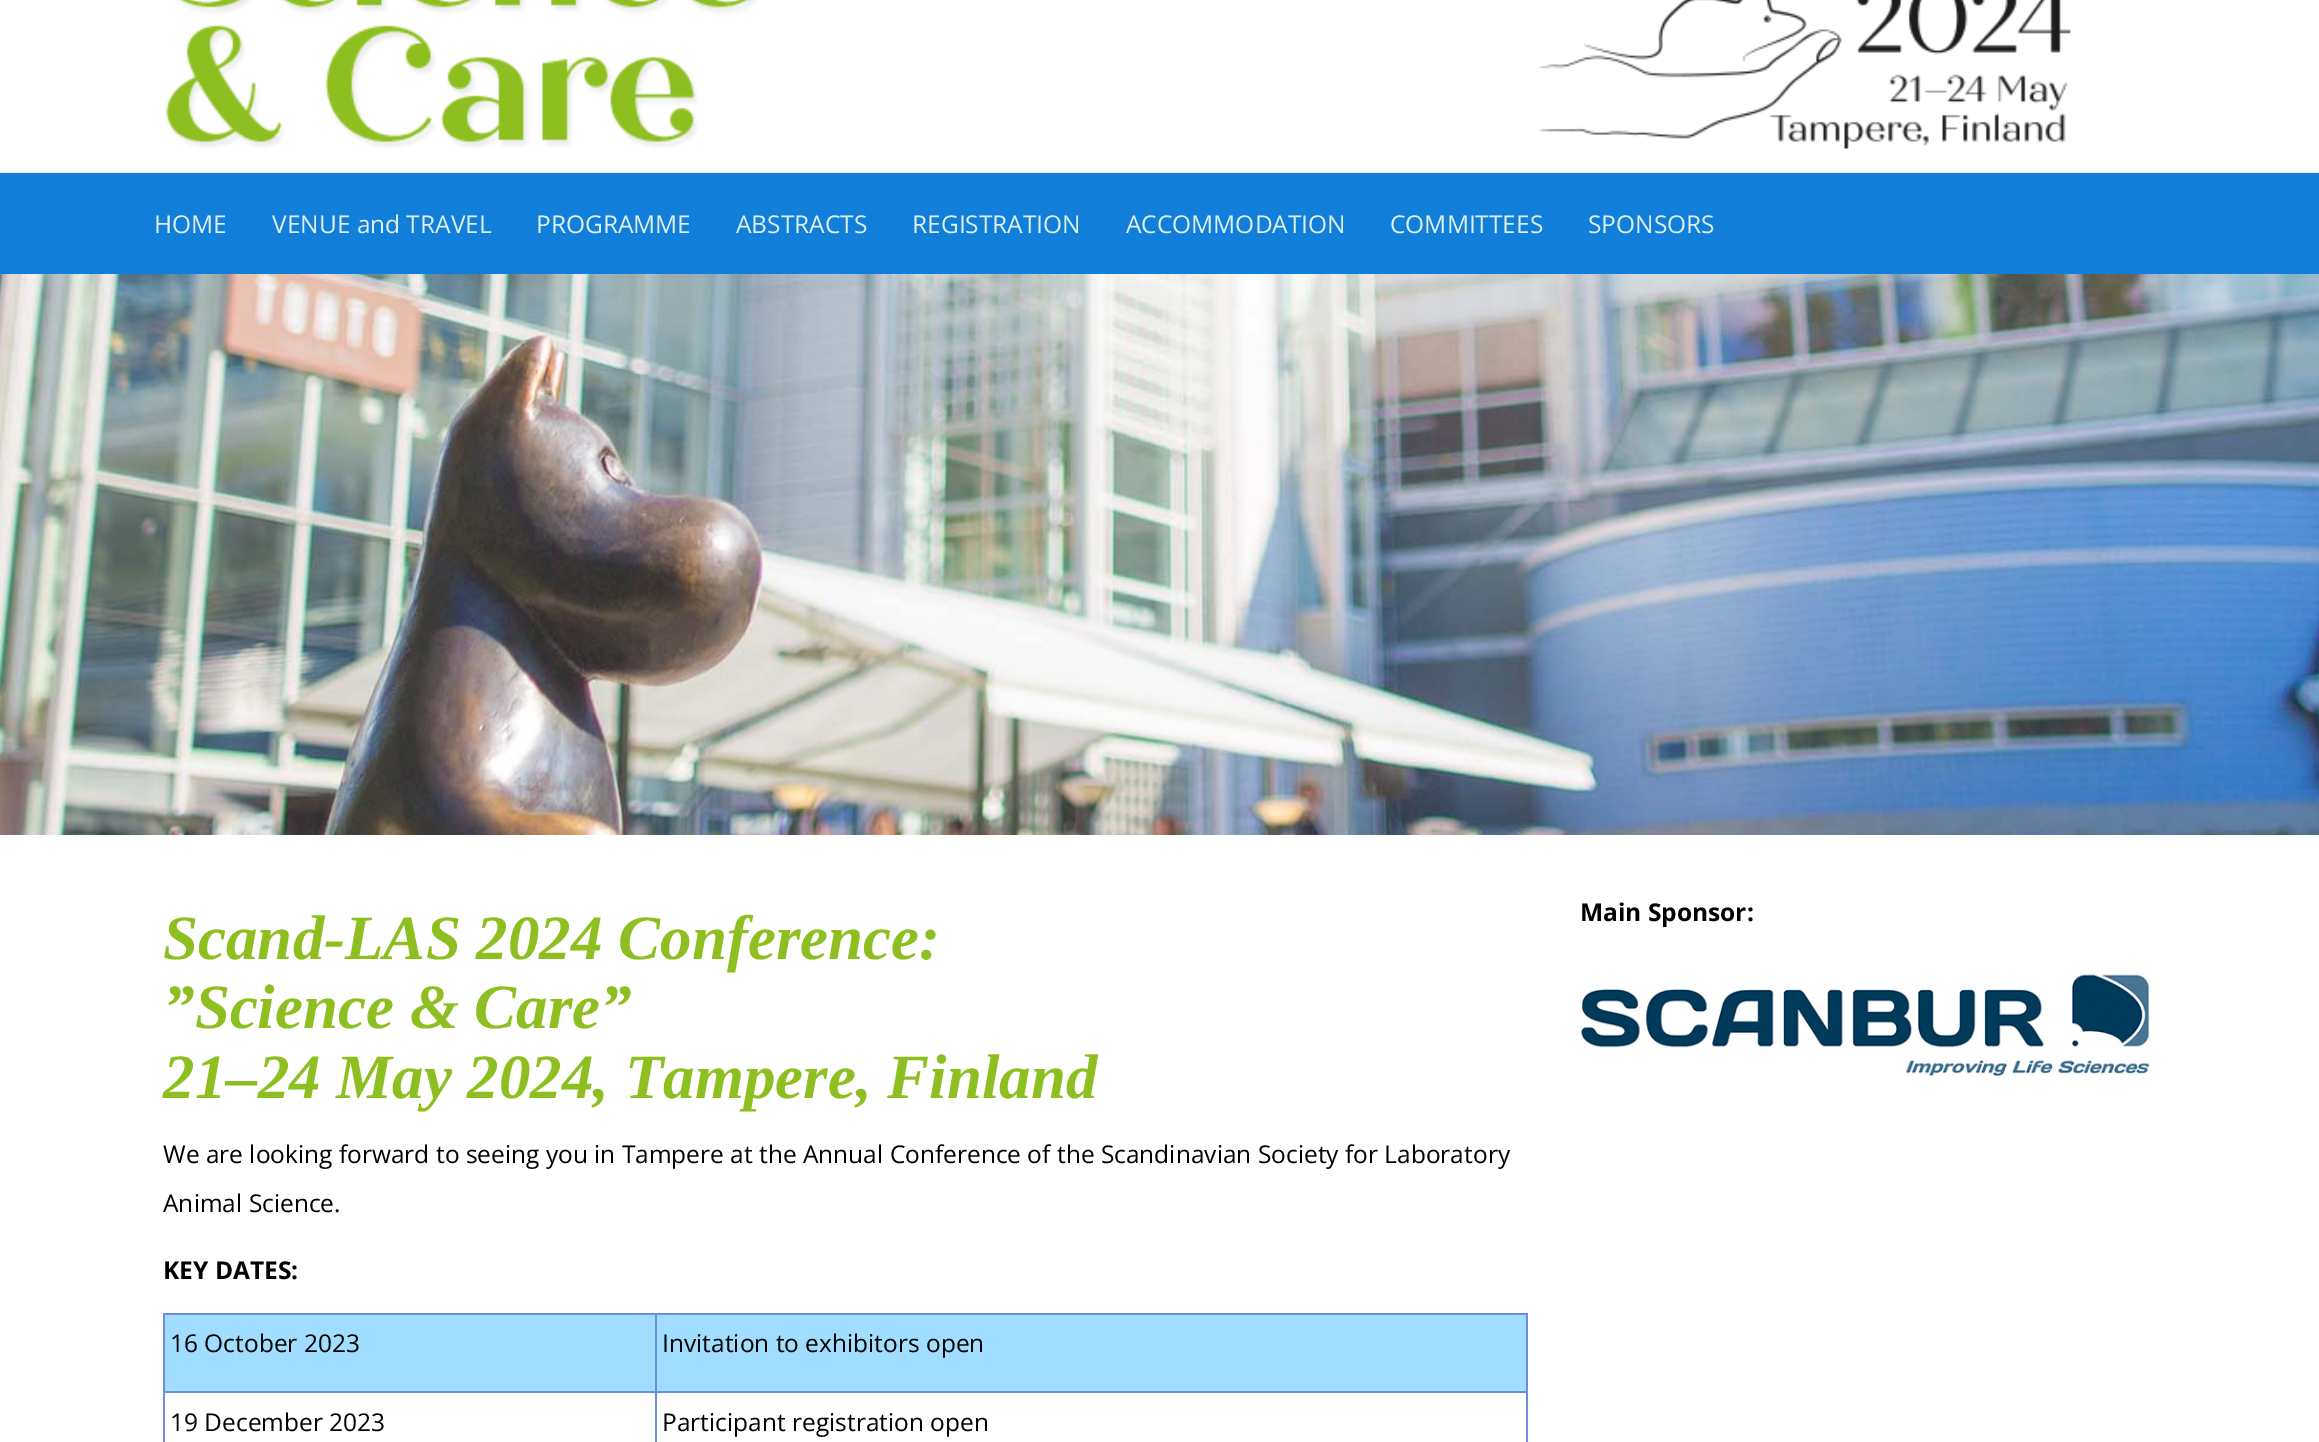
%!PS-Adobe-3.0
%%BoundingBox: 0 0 2319 1442
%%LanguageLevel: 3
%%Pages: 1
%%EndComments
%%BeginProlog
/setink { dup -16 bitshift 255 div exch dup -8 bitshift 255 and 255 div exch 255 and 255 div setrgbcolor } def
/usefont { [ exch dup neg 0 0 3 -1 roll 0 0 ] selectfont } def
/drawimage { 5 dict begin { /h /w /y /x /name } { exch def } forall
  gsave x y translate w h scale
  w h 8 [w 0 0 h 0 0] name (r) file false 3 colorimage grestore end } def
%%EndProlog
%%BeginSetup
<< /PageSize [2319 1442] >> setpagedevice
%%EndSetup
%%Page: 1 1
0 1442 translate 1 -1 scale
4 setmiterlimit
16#FFFFFF setink
0 0 2319 1442 rectfill
16#F2F1F1 setink
0 172 2319 1 rectfill
(img1.raw) 165 0 1906 149 drawimage
16#117FD9 setink
0 173 2319 101 rectfill
/OpenSans-Regular 24.5 usefont
16#DEF1F0 setink
[
    [(HOME) 154 233]
    [(VENUE and TRAVEL) 272 233]
    [(PROGRAMME) 536 233]
    [(ABSTRACTS) 736 233]
    [(REGISTRATION) 912 233]
    [(ACCOMMODATION) 1126 233]
    [(COMMITTEES) 1390 233]
    [(SPONSORS) 1588 233]
] { aload pop moveto show } forall
(img2.raw) 0 274 2319 561 drawimage
/LiberationSerif-BoldItalic 63 usefont
16#8DBF20 setink
[
    [(Scand-LAS 2024 Conference:) 163 959]
    [(”Science & Care”) 163 1028]
    [(21–24 May 2024, Tampere, Finland) 163 1098]
] { aload pop moveto show } forall
/OpenSans-Regular 24.5 usefont
16#010101 setink
163 1163 moveto (We are looking forward to seeing you in Tampere at the Annual Conference of the Scandinavian Society for Laboratory) show
163 1212 moveto (Animal Science.) show
/OpenSans-Bold 24.5 usefont
163 1279 moveto (KEY DATES:) show
[
    [165 1315 1361 76 16#A1DDFF]
    [655 1313 873 2 16#708DDB]
    [655 1391 873 2 16#708DDB]
    [655 1391 2 51 16#708DDB]
    [163 1391 493 2 16#708DDB]
    [655 1313 2 80 16#708DDB]
    [163 1313 493 2 16#708DDB]
    [163 1391 2 51 16#708DDB]
    [163 1313 2 80 16#708DDB]
] { aload pop setink rectfill } forall
/OpenSans-Regular 24.5 usefont
16#010101 setink
170 1352 moveto (16 October 2023) show
16#708DDB setink
1526 1391 2 51 rectfill
1526 1313 2 80 rectfill
16#010101 setink
[
    [(Invitation to exhibitors open) 662 1352]
    [(19 December 2023) 170 1431]
    [(Participant registration open) 662 1431]
] { aload pop moveto show } forall
/OpenSans-Bold 24.5 usefont
1580 921 moveto (Main Sponsor:) show
(img3.raw) 1581 974 569 102 drawimage
showpage
%%EOF
